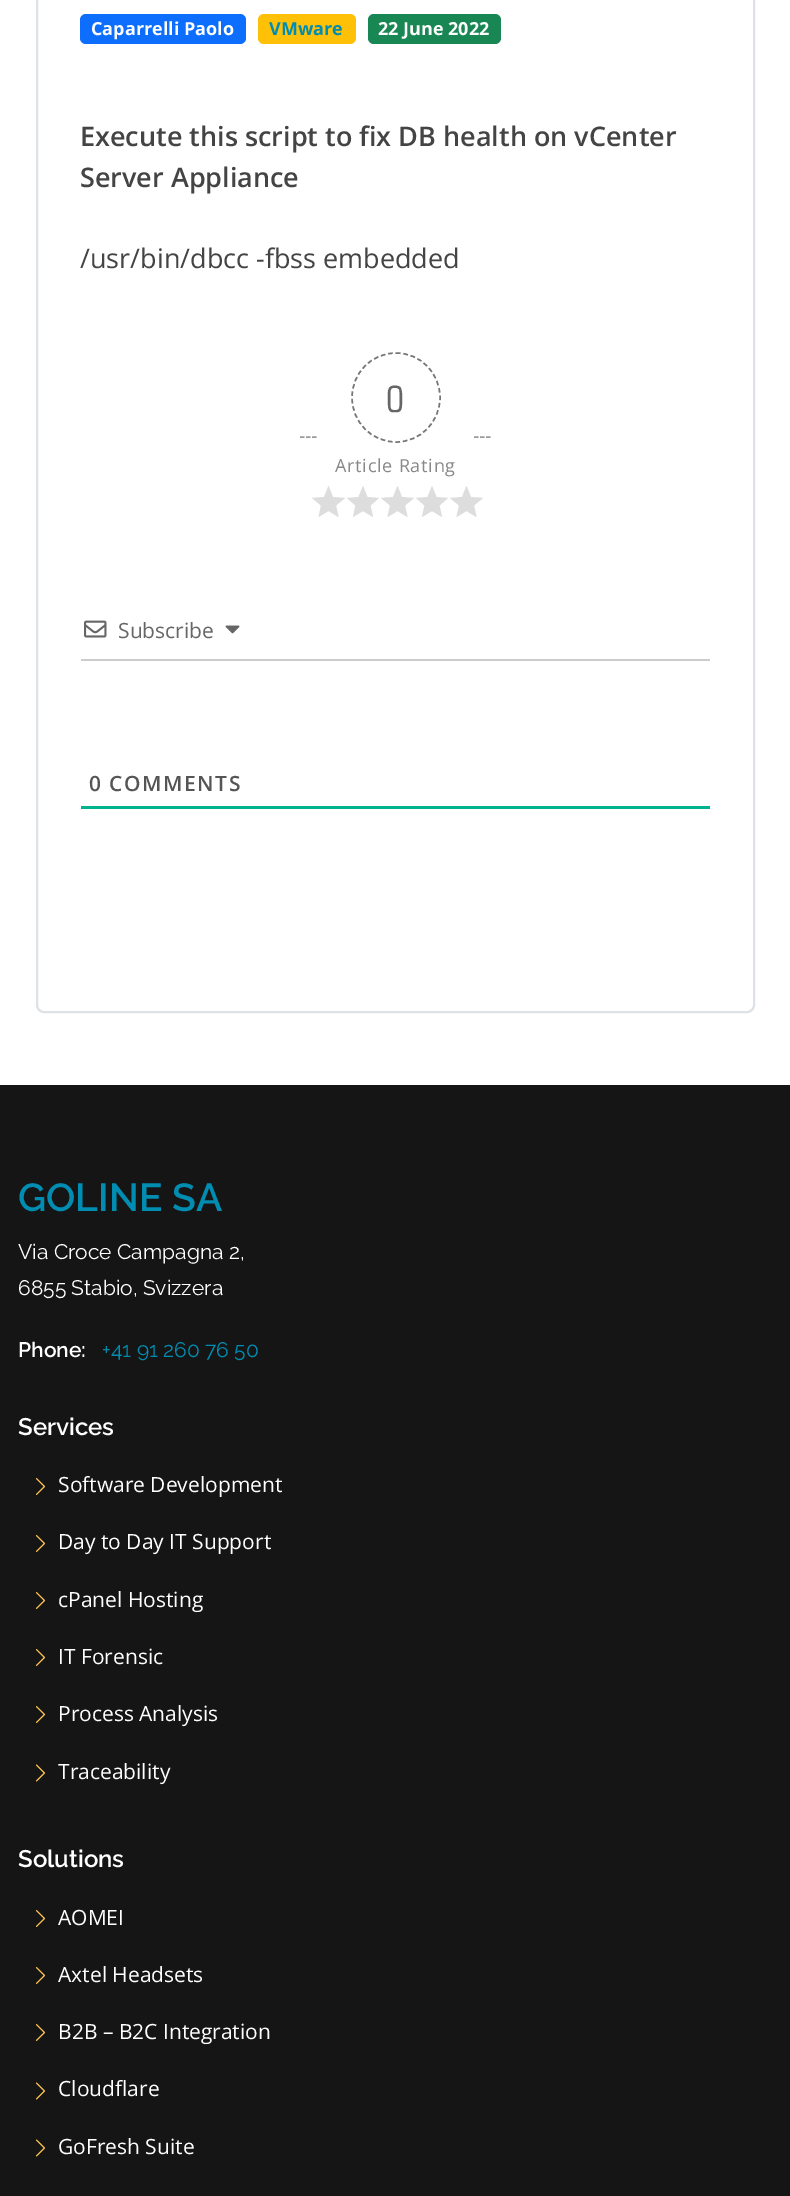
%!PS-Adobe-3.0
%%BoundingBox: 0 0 790 2196
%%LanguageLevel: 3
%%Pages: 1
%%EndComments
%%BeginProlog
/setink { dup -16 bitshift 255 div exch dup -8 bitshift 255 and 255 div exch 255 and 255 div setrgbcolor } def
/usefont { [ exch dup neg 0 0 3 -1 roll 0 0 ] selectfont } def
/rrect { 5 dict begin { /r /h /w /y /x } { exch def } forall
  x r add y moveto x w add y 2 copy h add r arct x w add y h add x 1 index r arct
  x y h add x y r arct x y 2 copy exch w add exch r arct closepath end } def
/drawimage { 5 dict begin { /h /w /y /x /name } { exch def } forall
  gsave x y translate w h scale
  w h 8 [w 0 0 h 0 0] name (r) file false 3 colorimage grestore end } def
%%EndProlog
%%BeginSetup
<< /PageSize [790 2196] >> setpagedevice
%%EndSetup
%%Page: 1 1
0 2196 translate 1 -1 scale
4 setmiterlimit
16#FFFFFF setink
0 0 790 2196 rectfill
16#DEE2E6 setink
2 setlinewidth
37 -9 717 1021 7 rrect stroke
16#0D6EFD setink
80 14 166 30 6 rrect fill
/OpenSans-Bold 18 usefont
16#FFFFFF setink
91 35 moveto (Caparrelli Paolo) show
16#FFC107 setink
258 14 98 30 6 rrect fill
16#008DB1 setink
269 35 moveto (VMware) show
16#198754 setink
368 14 133 30 6 rrect fill
16#FFFFFF setink
378 35 moveto (22 June 2022) show
/OpenSans-SemiBold 27 usefont
16#444444 setink
80 146 moveto (Execute this script to fix DB health on vCenter) show
80 187 moveto (Server Appliance) show
/OpenSans-Regular 27 usefont
80 268 moveto (/usr/bin/dbcc -fbss embedded) show
16#999999 setink
1.5 setlinewidth
300 437 moveto 304.5 437 lineto 306 437 moveto 310.5 437 lineto 312 437 moveto 316.5 437 lineto stroke
16#777777 setink
[4.5 3] 0 setdash
396 353 moveto 420.5 353 440 373 440 397.5 curveto 440 422 420.5 442 396 442 curveto 371.5 442 352 422 352 397.5 curveto 352 373 371.5 353 396 353 curveto closepath stroke
/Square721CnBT-Regular 36 usefont
16#666666 setink
386 412 moveto (0) show
/OpenSans-Regular 18 usefont
16#888888 setink
335 472 moveto 0.75 0 (Article Rating) ashow
16#DDDDDD setink
328.5 511 moveto 338.5 517 lineto 336 505.5 lineto 345 498 lineto 333 497 lineto 328.5 486 lineto 324 497 lineto 312 498 lineto 321 505.5 lineto 318.5 517 lineto closepath fill
363 511 moveto 373 517 lineto 370.5 505.5 lineto 379 498 lineto 367.5 497 lineto 363 486 lineto 358.5 497 lineto 347 498 lineto 355.5 505.5 lineto 353 517 lineto closepath fill
397.5 511 moveto 407.5 517 lineto 405 505.5 lineto 414 498 lineto 402 497 lineto 397.5 486 lineto 393 497 lineto 381 498 lineto 390 505.5 lineto 387.5 517 lineto closepath fill
432 511 moveto 442 517 lineto 439.5 505.5 lineto 448 498 lineto 436.5 497 lineto 432 486 lineto 427.5 497 lineto 416 498 lineto 424.5 505.5 lineto 422 517 lineto closepath fill
466.5 511 moveto 476.5 517 lineto 474 505.5 lineto 483 498 lineto 471 497 lineto 466.5 486 lineto 462 497 lineto 450 498 lineto 459 505.5 lineto 456.5 517 lineto closepath fill
16#999999 setink
[] 0 setdash
474 437 moveto 478.5 437 lineto 480 437 moveto 484.5 437 lineto 486 437 moveto 490.5 437 lineto stroke
16#CCCCCC setink
81 659 629 2 rectfill
(img1.raw) 84 620 23 18 drawimage
/OpenSans-Regular 21 usefont
16#666666 setink
118 638 moveto (Subscribe) show
(img2.raw) 225 625 15 9 drawimage
16#00B38F setink
81 806 629 3 rectfill
/OpenSans-SemiBold 21 usefont
16#555555 setink
89 791 moveto 1.5 0 (0 COMMENTS) ashow
16#151515 setink
0 1085 790 1111 rectfill
/Raleway-Thin 39 usefont
16#008DB1 setink
18 1211 moveto (GOLINE SA) show
/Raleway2-Thin 21 usefont
16#FFFFFF setink
18 1259 moveto (Via Croce Campagna 2,) show
18 1295 moveto (6855 Stabio, Svizzera) show
/Raleway-Thin 21 usefont
18 1357 moveto (Phone:) show
/Raleway2-Thin 21 usefont
16#008DB1 setink
102 1357 moveto (+41 91 260 76 50) show
/Raleway-Thin 24 usefont
16#FFFFFF setink
18 1435 moveto (Services) show
(img3.raw) 35 1478 11 17 drawimage
/OpenSans-Regular 21 usefont
58 1492 moveto (Software Development) show
(img3.raw) 35 1535 11 17 drawimage
58 1549 moveto (Day to Day IT Support) show
(img3.raw) 35 1592 11 17 drawimage
58 1607 moveto (cPanel Hosting) show
(img3.raw) 35 1649 11 17 drawimage
58 1664 moveto (IT Forensic) show
(img3.raw) 35 1706 11 17 drawimage
58 1721 moveto (Process Analysis) show
(img4.raw) 35 1764 10 18 drawimage
58 1779 moveto (Traceability) show
/Raleway-Thin 24 usefont
18 1867 moveto (Solutions) show
(img3.raw) 35 1910 11 17 drawimage
/OpenSans-Regular 21 usefont
58 1925 moveto (AOMEI) show
(img3.raw) 35 1967 11 17 drawimage
58 1982 moveto (Axtel Headsets) show
(img3.raw) 35 2024 11 17 drawimage
58 2039 moveto (B2B – B2C Integration) show
(img4.raw) 35 2082 10 18 drawimage
58 2096 moveto (Cloudflare) show
(img4.raw) 35 2139 10 18 drawimage
58 2154 moveto (GoFresh Suite) show
showpage
%%EOF
